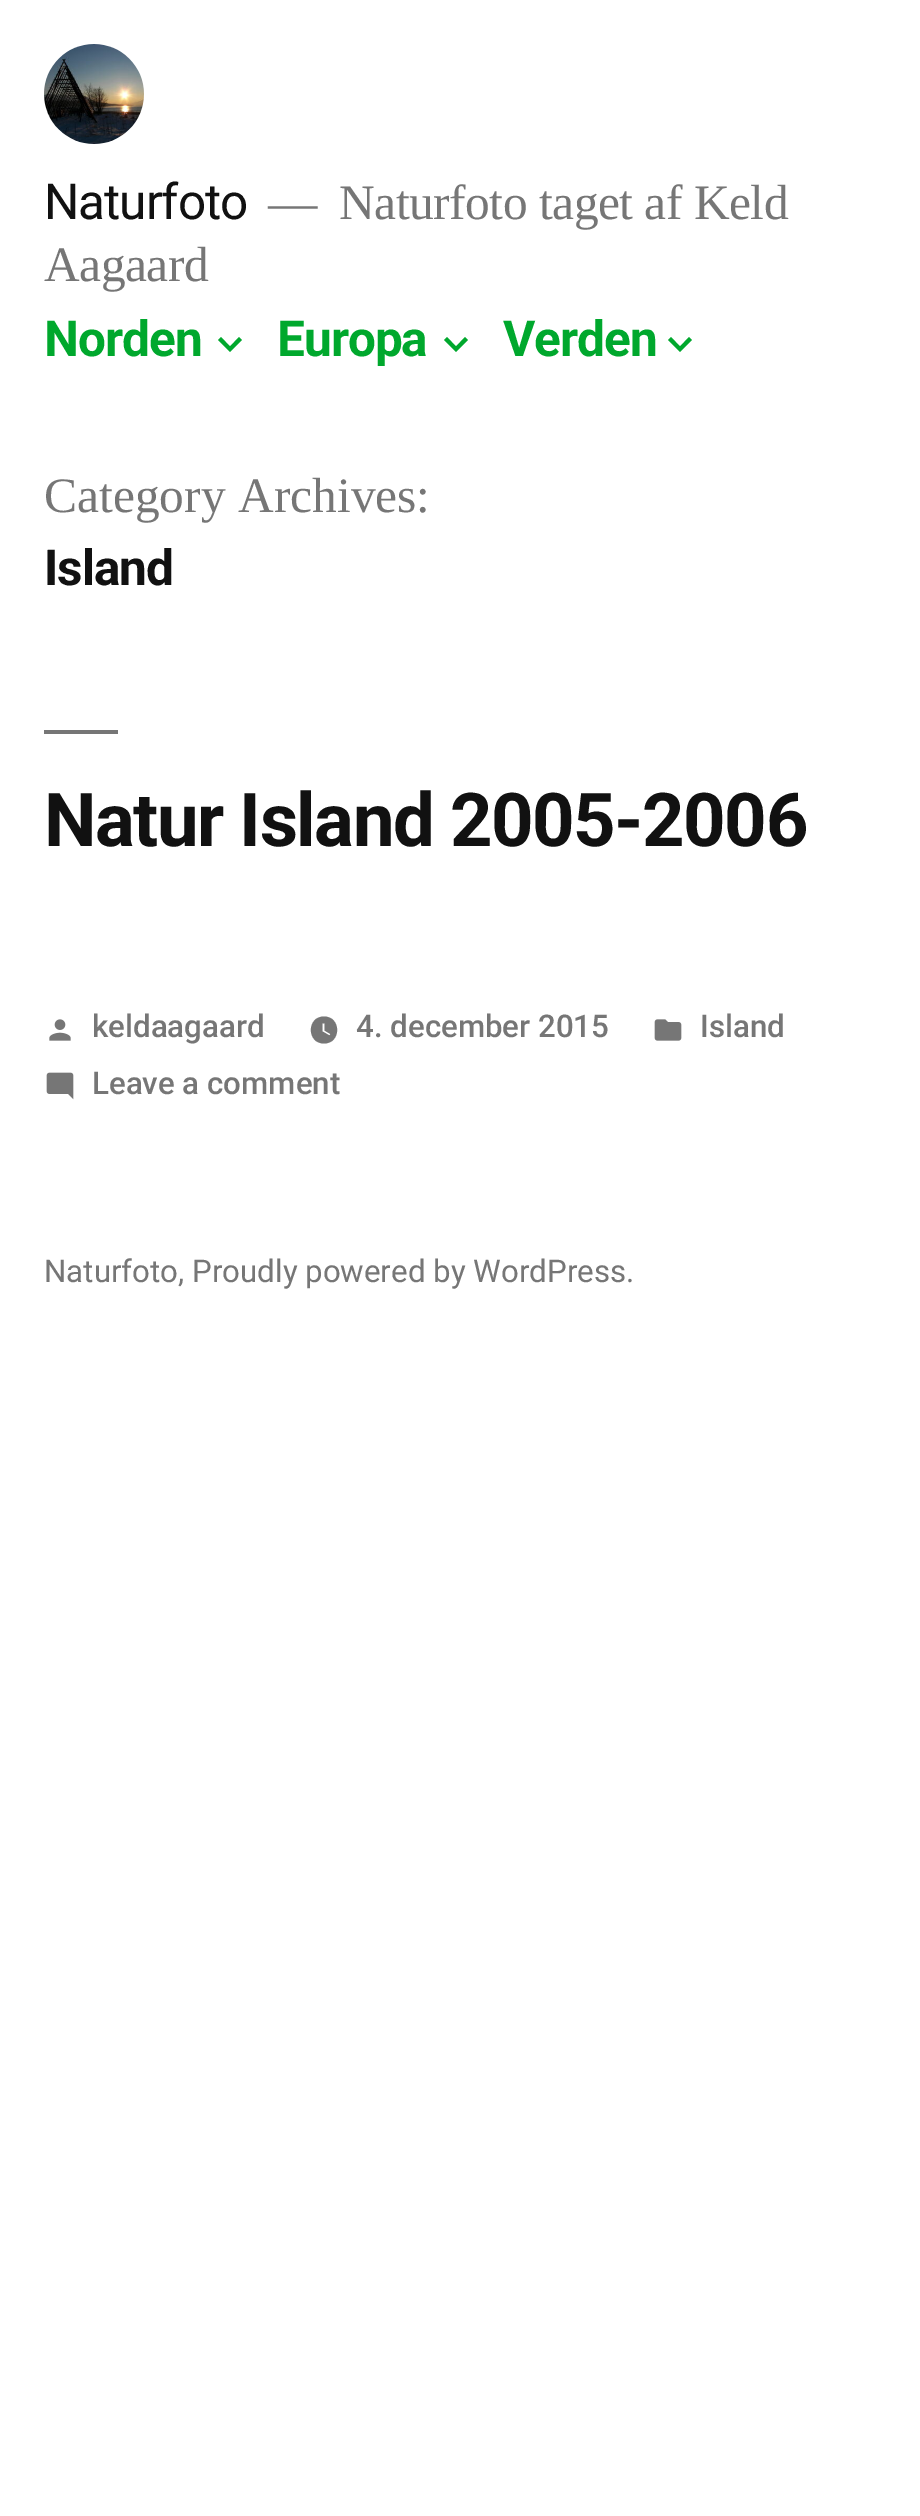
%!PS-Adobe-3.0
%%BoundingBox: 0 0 920 2516
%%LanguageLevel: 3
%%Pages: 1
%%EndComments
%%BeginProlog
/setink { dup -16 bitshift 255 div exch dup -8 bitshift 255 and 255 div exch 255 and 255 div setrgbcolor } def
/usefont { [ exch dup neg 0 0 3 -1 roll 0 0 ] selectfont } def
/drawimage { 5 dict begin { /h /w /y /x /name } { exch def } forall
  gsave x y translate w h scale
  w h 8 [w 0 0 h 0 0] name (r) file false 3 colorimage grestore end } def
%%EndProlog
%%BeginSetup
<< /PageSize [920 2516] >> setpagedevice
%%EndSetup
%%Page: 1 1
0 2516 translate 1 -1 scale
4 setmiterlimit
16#FFFFFF setink
0 0 920 2516 rectfill
(img1.raw) 44 44 100 100 drawimage
/Roboto-Regular 49.5 usefont
16#111111 setink
44 219 moveto -1 0 (Naturfoto) ashow
/LiberationSerif-Regular 49.5 usefont
16#767676 setink
268 219 moveto -0.5 0 (—) ashow
339 219 moveto -0.5 0 (Naturfoto taget af Keld) ashow
44 281 moveto -0.5 0 (Aagaard) ashow
/Roboto-Bold 49.5 usefont
16#00A82D setink
44 356 moveto -1 0 (Norden) ashow
221 337 moveto 230 346.5 lineto 239 337 lineto 242 340 lineto 230 352 lineto 218 340 lineto closepath fill
277 356 moveto -1 0 (Europa) ashow
447 337 moveto 456 346.5 lineto 465 337 lineto 468 340 lineto 456 352 lineto 444 340 lineto closepath fill
503 356 moveto -1 0 (Verden) ashow
671 337 moveto 680 346.5 lineto 689 337 lineto 692 340 lineto 680 352 lineto 668 340 lineto closepath fill
/LiberationSerif-Regular 49.5 usefont
16#767676 setink
44 512 moveto (Category Archives:) show
/Roboto-Bold 49.5 usefont
16#111111 setink
44 585 moveto -1 0 (Island) ashow
16#767676 setink
44 730 74 4 rectfill
/Roboto-Bold 74.25 usefont
16#111111 setink
44 846 moveto -1.5 0 (Natur Island 2005-2006) ashow
(img2.raw) 49 1019 22 22 drawimage
/Roboto-Medium 31.25 usefont
16#767676 setink
92 1037 moveto (keldaagaard) show
324 1016.5 moveto 306.5 1016.5 306.5 1043.5 324 1043.5 curveto 341.5 1043.5 341.5 1016.5 324 1016.5 curveto closepath 329.5 1035.5 moveto 322.5 1031.5 lineto 322.5 1023.5 lineto 324.5 1023.5 lineto 324.5 1030.5 lineto 330.5 1034 lineto closepath fill
356 1037 moveto (4. december 2015) show
(img3.raw) 654 1019 28 22 drawimage
700 1037 moveto (Island) show
(img4.raw) 46 1072 28 28 drawimage
92 1094 moveto (Leave a comment) show
/Roboto-Regular 31.25 usefont
44 1282 moveto (Naturfoto, Proudly powered by WordPress.) show
showpage
%%EOF
